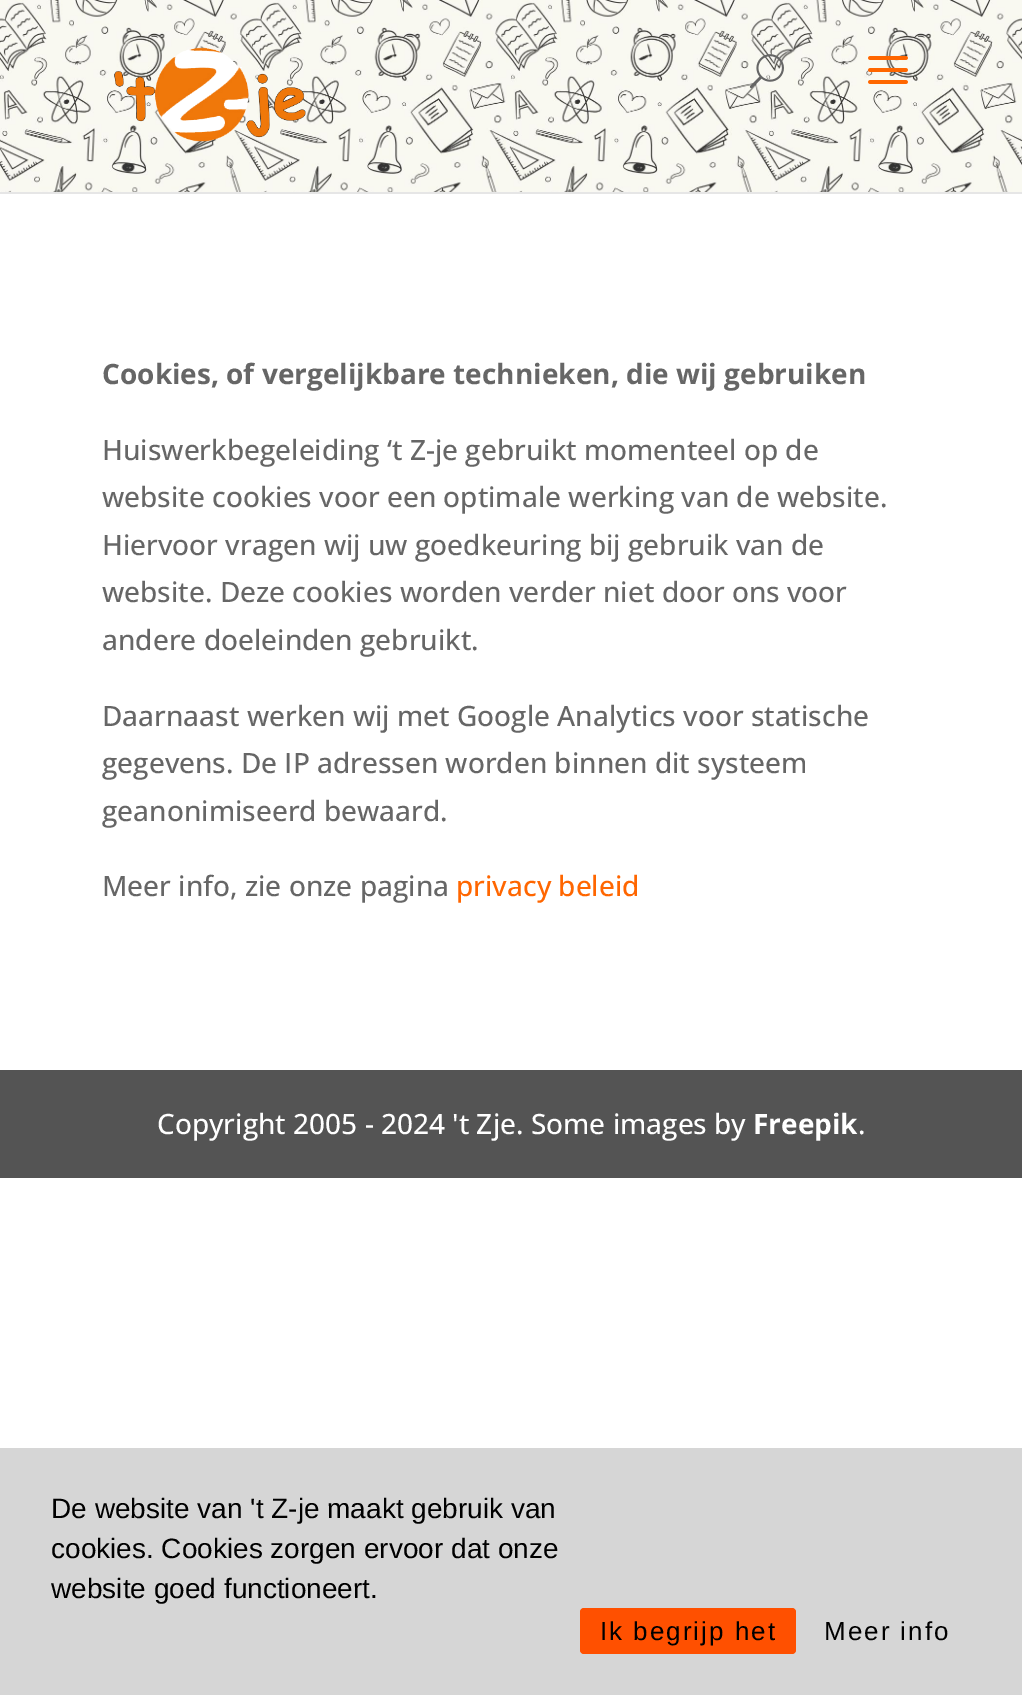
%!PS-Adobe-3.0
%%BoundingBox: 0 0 1022 1695
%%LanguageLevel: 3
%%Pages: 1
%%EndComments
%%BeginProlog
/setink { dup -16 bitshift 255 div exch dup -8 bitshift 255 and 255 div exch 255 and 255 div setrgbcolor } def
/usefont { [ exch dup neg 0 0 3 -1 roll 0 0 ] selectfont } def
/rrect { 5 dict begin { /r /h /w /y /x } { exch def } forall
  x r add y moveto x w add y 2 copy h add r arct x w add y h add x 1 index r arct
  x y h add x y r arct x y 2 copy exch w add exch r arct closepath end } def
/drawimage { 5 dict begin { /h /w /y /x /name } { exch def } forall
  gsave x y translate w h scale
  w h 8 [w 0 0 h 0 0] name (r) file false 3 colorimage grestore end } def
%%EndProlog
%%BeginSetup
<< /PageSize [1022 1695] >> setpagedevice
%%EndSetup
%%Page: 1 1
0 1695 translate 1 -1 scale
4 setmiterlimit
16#FFFFFF setink
0 0 1022 1695 rectfill
16#E6E6E6 setink
0 192 1022 2 rectfill
(img1.raw) 0 0 1022 192 drawimage
(img2.raw) 114 47 192 95 drawimage
(img3.raw) 749 54 35 35 drawimage
(img4.raw) 868 56 40 28 drawimage
/OpenSans-Bold 28 usefont
16#666666 setink
102 384 moveto (Cookies, of vergelijkbare technieken, die wij gebruiken) show
/OpenSans-Medium 28 usefont
[
    [(Huiswerkbegeleiding ‘t Z-je gebruikt momenteel op de) 102 460]
    [(website cookies voor een optimale werking van de website.) 102 507]
    [(Hiervoor vragen wij uw goedkeuring bij gebruik van de) 102 555]
    [(website. Deze cookies worden verder niet door ons voor) 102 602]
    [(andere doeleinden gebruikt.) 102 650]
    [(Daarnaast werken wij met Google Analytics voor statische) 102 726]
    [(gegevens. De IP adressen worden binnen dit systeem) 102 773]
    [(geanonimiseerd bewaard.) 102 821]
    [(Meer info, zie onze pagina) 102 896]
] { aload pop moveto show } forall
16#FF6600 setink
456 896 moveto (privacy beleid) show
16#545454 setink
0 1070 1022 108 rectfill
16#FFFFFF setink
157 1134 moveto (Copyright 2005 - 2024 't Zje. Some images by) show
/OpenSans-Bold 28 usefont
753 1134 moveto (Freepik) show
/OpenSans-Medium 28 usefont
858 1134 moveto (.) show
16#D6D6D6 setink
0 1448 1022 247 rectfill
/LiberationSans-Regular 28 usefont
16#000000 setink
[
    [(De website van 't Z-je maakt gebruik van) 51 1518]
    [(cookies. Cookies zorgen ervoor dat onze) 51 1558]
    [(website goed functioneert.) 51 1598]
] { aload pop moveto show } forall
16#FF5000 setink
580 1608 216 46 4 rrect fill
/LiberationSans-Regular 26 usefont
16#000000 setink
600 1640 moveto 2 0 (Ik begrijp het) ashow
824 1640 moveto 2 0 (Meer info) ashow
showpage
%%EOF
